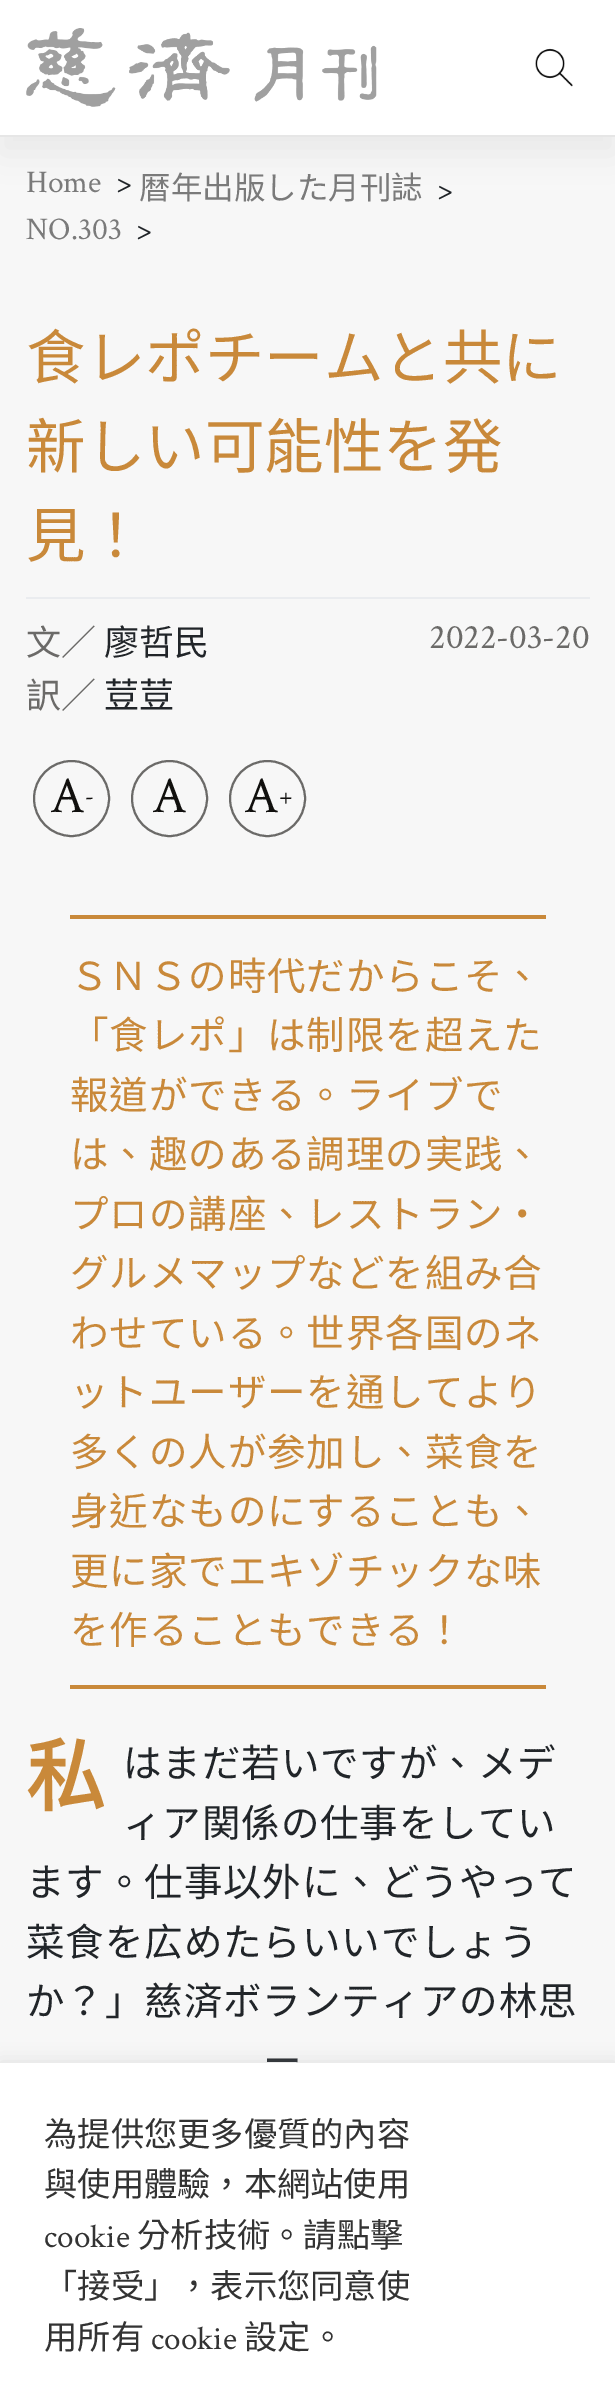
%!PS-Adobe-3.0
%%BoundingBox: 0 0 615 2404
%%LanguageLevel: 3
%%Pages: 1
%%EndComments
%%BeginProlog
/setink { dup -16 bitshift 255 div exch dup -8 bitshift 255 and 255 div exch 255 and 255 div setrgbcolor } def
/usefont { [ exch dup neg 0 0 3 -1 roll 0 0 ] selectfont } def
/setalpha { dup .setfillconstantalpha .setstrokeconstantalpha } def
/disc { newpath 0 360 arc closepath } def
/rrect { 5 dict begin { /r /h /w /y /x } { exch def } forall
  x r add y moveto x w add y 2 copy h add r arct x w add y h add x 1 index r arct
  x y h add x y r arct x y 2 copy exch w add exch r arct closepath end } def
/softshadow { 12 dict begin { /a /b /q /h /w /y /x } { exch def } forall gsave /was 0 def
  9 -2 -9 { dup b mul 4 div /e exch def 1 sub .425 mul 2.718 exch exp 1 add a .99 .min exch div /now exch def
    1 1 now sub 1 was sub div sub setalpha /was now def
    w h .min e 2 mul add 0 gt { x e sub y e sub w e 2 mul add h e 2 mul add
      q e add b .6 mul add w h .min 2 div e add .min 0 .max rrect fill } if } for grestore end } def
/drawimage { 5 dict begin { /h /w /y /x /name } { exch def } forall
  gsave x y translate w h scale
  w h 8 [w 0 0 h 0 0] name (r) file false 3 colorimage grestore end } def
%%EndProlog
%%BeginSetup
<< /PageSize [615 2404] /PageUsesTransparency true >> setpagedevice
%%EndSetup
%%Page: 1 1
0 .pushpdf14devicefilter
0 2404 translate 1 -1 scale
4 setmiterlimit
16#F7F7F7 setink
0 0 615 2404 rectfill
16#000000 setink
0 18 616 136 0 17.5 0.05 softshadow
16#FFFFFF setink
0 0 615 135 rectfill
16#E6E6E6 setink
0 135 615 2 rectfill
(img1.raw) 26 28 351 79 drawimage
(img2.raw) 535 48 38 39 drawimage
/CrimsonText-Regular 31.5 usefont
16#7A7A7A setink
26 192 moveto (Home) show
16#212529 setink
116 192 moveto (>) show
/NotoSansCJKTC-Regular 31.5 usefont
16#7A7A7A setink
139 199 moveto (暦年出版した月刊誌) show
/CrimsonText-Regular 31.5 usefont
16#212529 setink
437 199 moveto (>) show
16#7A7A7A setink
26 239 moveto (NO.303) show
16#212529 setink
136 239 moveto (>) show
16#EAECEF setink
26 597 564 2 rectfill
/NotoSansCJKTC-Regular 59.5 usefont
16#C9893A setink
[
    [(食レポチームと共に) 26 379]
    [(新しい可能性を発) 26 468]
    [(見！) 26 557]
] { aload pop moveto show } forall
/NotoSansCJKTC-Regular 35 usefont
16#6B6A68 setink
26 655 moveto (文／) show
16#212529 setink
104 655 moveto (廖哲民) show
16#6B6A68 setink
26 708 moveto (訳／) show
16#212529 setink
104 708 moveto (荳荳) show
/CrimsonText-Regular 35 usefont
16#6B6A68 setink
429 648 moveto (2022-03-20) show
2 setlinewidth
71.5 798.5 37.5 disc stroke
/CrimsonText-Regular 52 usefont
16#11100E setink
50 812 moveto (A) show
/CrimsonText-Regular 24 usefont
85 804 moveto (-) show
16#6B6A68 setink
169.5 798.5 37.5 disc stroke
/CrimsonText-Regular 52 usefont
16#11100E setink
152 812 moveto (A) show
16#6B6A68 setink
267.5 798.5 37.5 disc stroke
16#11100E setink
244 812 moveto (A) show
/CrimsonText-Regular 24 usefont
279 804 moveto (+) show
16#C9893A setink
70 915 476 4 rectfill
/NotoSansCJKTC-Regular 38.5 usefont
70 990 moveto 0.9 0 (ＳＮＳの時代だからこそ、) ashow
70 1049 moveto 0.9 0 (「食レポ」は制限を超えた) ashow
70 1109 moveto 0.9 0 (報道ができる。ライブで) ashow
70 1168 moveto 0.9 0 (は、趣のある調理の実践、) ashow
70 1228 moveto 0.9 0 (プロの講座、レストラン・) ashow
70 1287 moveto 0.9 0 (グルメマップなどを組み合) ashow
70 1347 moveto 0.9 0 (わせている。世界各国のネ) ashow
70 1406 moveto 0.9 0 (ットユーザーを通してより) ashow
70 1466 moveto 0.9 0 (多くの人が参加し、菜食を) ashow
70 1525 moveto 0.9 0 (身近なものにすることも、) ashow
70 1585 moveto 0.9 0 (更に家でエキゾチックな味) ashow
70 1644 moveto 0.9 0 (を作ることもできる！) ashow
70 1685 476 4 rectfill
/NotoSansCJKTC-Bold 79 usefont
26 1805 moveto 0.9 0 (私) ashow
/NotoSansCJKTC-Regular 38.5 usefont
16#212529 setink
123 1777 moveto 0.9 0 (はまだ若いですが、メデ) ashow
123 1837 moveto 0.9 0 (ィア関係の仕事をしてい) ashow
26 1896 moveto 0.9 0 (ます。仕事以外に、どうやって) ashow
26 1956 moveto 0.9 0 (菜食を広めたらいいでしょう) ashow
26 2015 moveto 0.9 0 (か？」慈済ボランティアの林思) ashow
263 2075 moveto 0.9 0 (ー) ashow
16#ACABAB setink
0 2062 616 341 0 9 0.3 softshadow
16#FFFFFF setink
0 2063 615 341 rectfill
/NotoSansCJKTC-Regular 33.25 usefont
16#333333 setink
44 2146 moveto (為提供您更多優質的內容) show
44 2196 moveto (與使用體驗，本網站使用) show
/CrimsonText-Regular 33.25 usefont
44 2247 moveto (cookie) show
/NotoSansCJKTC-Regular 33.25 usefont
[
    [(分析技術。請點擊) 137 2247]
    [(「接受」，表示您同意使) 44 2298]
    [(用所有) 44 2349]
] { aload pop moveto show } forall
/CrimsonText-Regular 33.25 usefont
151 2349 moveto (cookie) show
/NotoSansCJKTC-Regular 33.25 usefont
244 2349 moveto (設定。) show
.poppdf14devicefilter showpage
%%EOF
